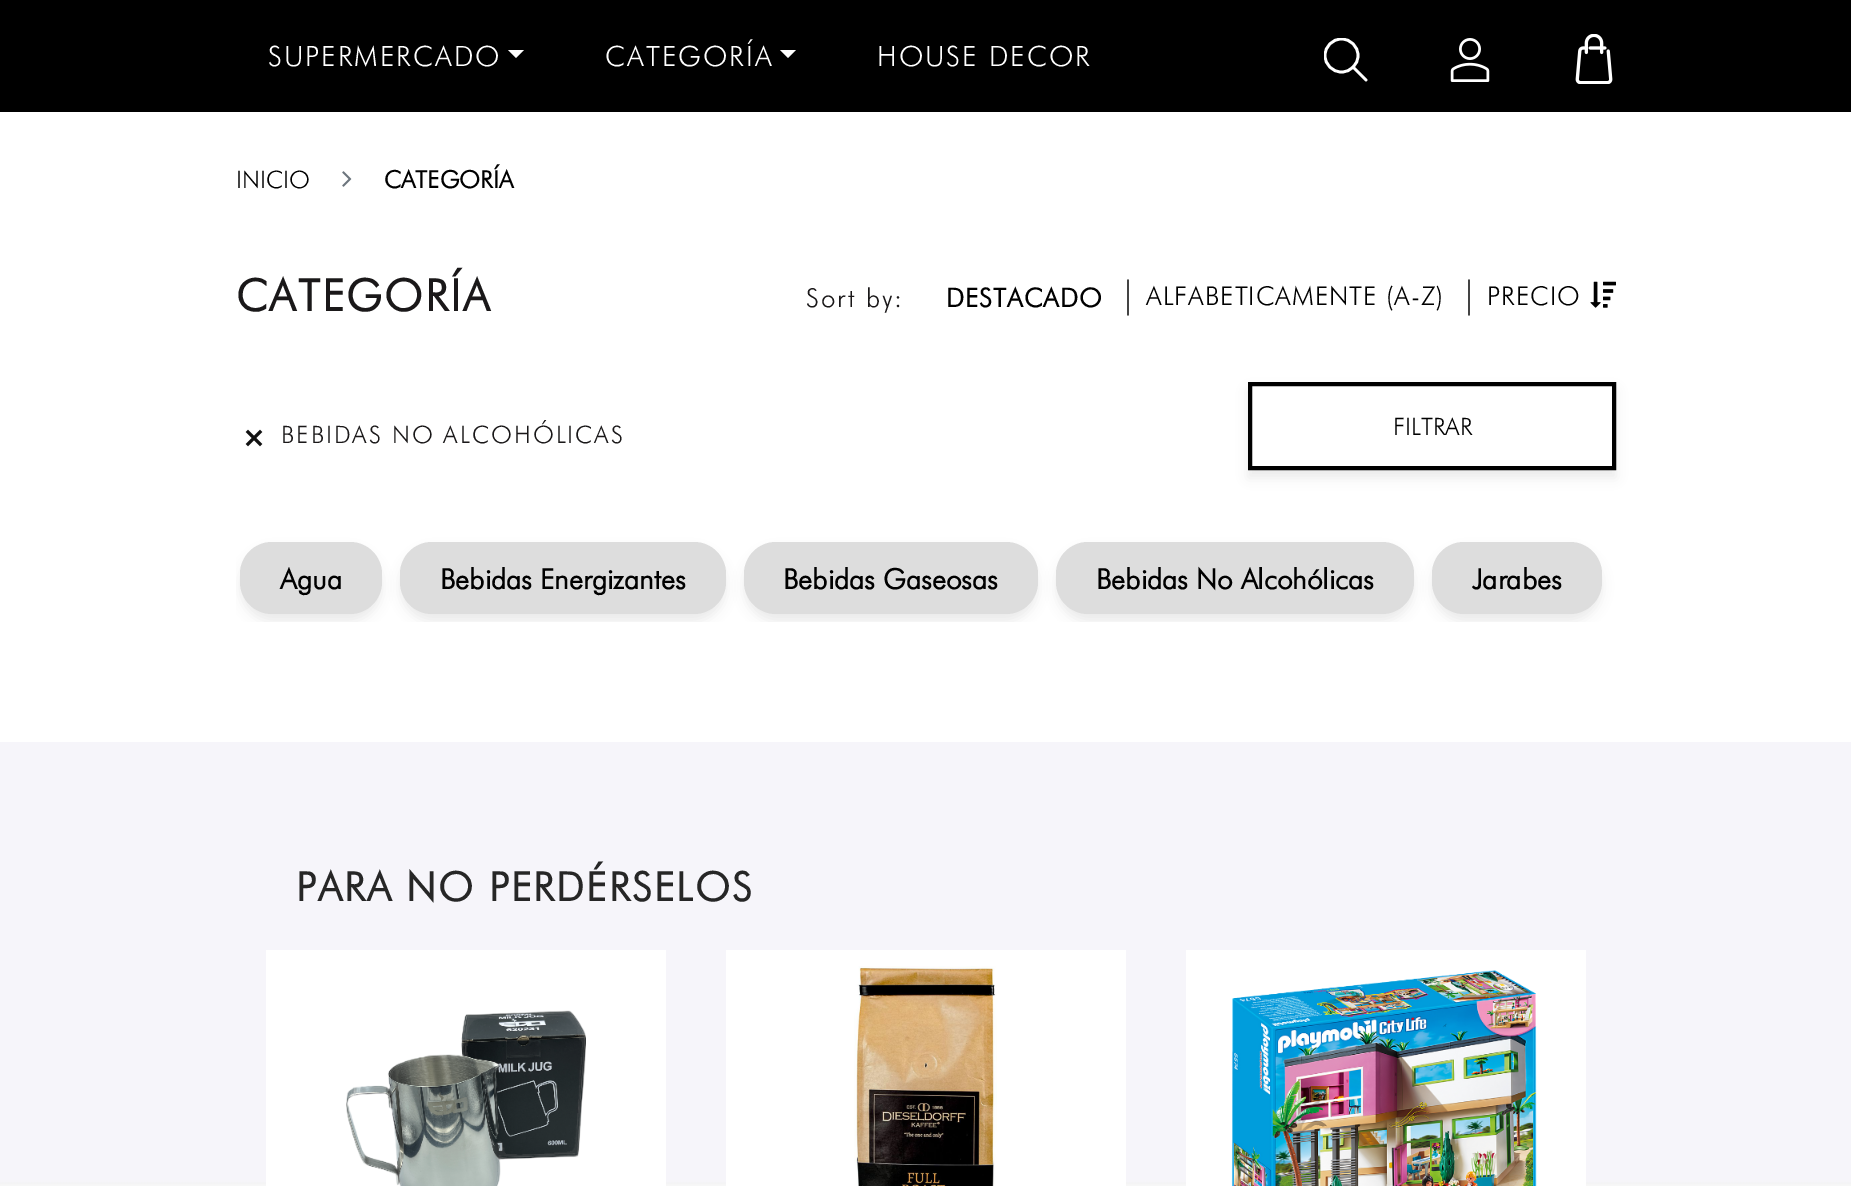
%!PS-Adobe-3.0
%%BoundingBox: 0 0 1851 1186
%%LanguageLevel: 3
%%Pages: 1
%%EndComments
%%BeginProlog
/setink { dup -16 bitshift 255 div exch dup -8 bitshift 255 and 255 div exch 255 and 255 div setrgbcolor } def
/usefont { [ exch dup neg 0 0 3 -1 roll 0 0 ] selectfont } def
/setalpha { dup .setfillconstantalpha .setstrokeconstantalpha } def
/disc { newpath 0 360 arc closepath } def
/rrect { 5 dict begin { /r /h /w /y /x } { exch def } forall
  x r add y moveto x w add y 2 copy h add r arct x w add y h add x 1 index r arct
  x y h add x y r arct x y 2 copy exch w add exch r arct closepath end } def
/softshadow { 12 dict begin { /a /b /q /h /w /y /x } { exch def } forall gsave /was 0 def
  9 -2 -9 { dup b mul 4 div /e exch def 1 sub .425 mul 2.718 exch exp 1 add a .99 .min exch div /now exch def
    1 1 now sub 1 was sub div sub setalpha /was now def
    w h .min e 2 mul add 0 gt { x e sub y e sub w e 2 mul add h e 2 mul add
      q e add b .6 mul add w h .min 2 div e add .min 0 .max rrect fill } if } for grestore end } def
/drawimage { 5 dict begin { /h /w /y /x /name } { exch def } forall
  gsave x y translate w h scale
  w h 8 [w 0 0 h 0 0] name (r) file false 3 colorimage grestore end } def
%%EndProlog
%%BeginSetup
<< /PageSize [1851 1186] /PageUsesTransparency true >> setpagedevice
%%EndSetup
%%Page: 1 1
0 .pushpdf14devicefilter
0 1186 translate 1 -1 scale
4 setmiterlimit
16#FFFFFF setink
0 0 1851 1186 rectfill
16#000000 setink
0 0 1851 112 rectfill
/Futura-Light 28 usefont
16#FFFFFF setink
268 66 moveto 2 0 (SUPERMERCADO) ashow
508 50 moveto 524 50 lineto 516 58 lineto closepath fill
605 66 moveto 2 0 (CATEGORÍA) ashow
780 50 moveto 796 50 lineto 788 58 lineto closepath fill
877 66 moveto 2 0 (HOUSE DECOR) ashow
2.7 setlinewidth
1 setlinecap
1366 80 moveto 1353 67 lineto stroke
gsave
1324 38 44 44 rectclip
0 setlinecap
1341.5 55.5 16.5 disc stroke
grestore
(img1.raw) 1450 38 40 44 drawimage
(img2.raw) 1575 34 38 50 drawimage
/Futura-Light 24 usefont
16#000000 setink
236 188 moveto (INICIO) show
(img3.raw) 342 171 10 16 drawimage
/Futura-Bold 24 usefont
384 188 moveto (CATEGORÍA) show
/Futura-Bold 44 usefont
16#1A1819 setink
236 311 moveto 2 0 (CATEGORÍA) ashow
/Futura-Light 26 usefont
806 307 moveto 2 0 (Sort by:) ashow
/Futura-Bold 26 usefont
16#000000 setink
946 307 moveto 1 0 (DESTACADO) ashow
/Futura-Light 36 usefont
1119 307 moveto 2 0 (|) ashow
/Futura-Light 26 usefont
1146 305 moveto 1 0 (ALFABETICAMENTE \(A-Z\)) ashow
/Futura-Light 36 usefont
1460 307 moveto 2 0 (|) ashow
/Futura-Light 26 usefont
1487 305 moveto 1 0 (PRECIO) ashow
(img4.raw) 1590 281 26 27 drawimage
16#111111 setink
3 setlinewidth
2 setlinecap
260 432 moveto 248 444 lineto 260 444 moveto 248 432 lineto stroke
/Futura-Light 24 usefont
16#1A1819 setink
281 443 moveto 2 0 (BEBIDAS NO ALCOHÓLICAS) ashow
gsave
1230 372 moveto 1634 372 lineto 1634 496 lineto 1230 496 lineto closepath 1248 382 moveto 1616 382 lineto 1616 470 lineto 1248 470 lineto closepath eoclip newpath
16#000000 setink
1248 390 368 88 0 5.5 0.07 softshadow
grestore
16#000000 setink
4 setlinewidth
0 setlinecap
1250 384 364 84 rectstroke
1393 435 moveto (FILTRAR) show
gsave
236 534 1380 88 rectclip
240 550 142 72 32 5.5 0.07 softshadow
grestore
16#DDDDDD setink
240 542 142 72 32 rrect fill
/Futura-Bold 28 usefont
16#000000 setink
280 589 moveto (Agua) show
gsave
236 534 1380 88 rectclip
400 550 326 72 32 5.5 0.07 softshadow
grestore
16#DDDDDD setink
400 542 326 72 32 rrect fill
16#000000 setink
440 589 moveto (Bebidas Energizantes) show
gsave
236 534 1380 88 rectclip
744 550 294 72 32 5.5 0.07 softshadow
grestore
16#DDDDDD setink
744 542 294 72 32 rrect fill
16#000000 setink
783 589 moveto (Bebidas Gaseosas) show
gsave
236 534 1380 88 rectclip
1056 550 358 72 32 5.5 0.07 softshadow
grestore
16#DDDDDD setink
1056 542 358 72 32 rrect fill
16#000000 setink
1096 589 moveto (Bebidas No Alcohólicas) show
gsave
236 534 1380 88 rectclip
1432 550 170 72 32 5.5 0.07 softshadow
grestore
16#DDDDDD setink
1432 542 170 72 32 rrect fill
16#000000 setink
1472 589 moveto (Jarabes) show
(img5.raw) 0 742 1851 444 drawimage
/Futura-Bold 40 usefont
16#262626 setink
296 901 moveto 2 0 (PARA NO PERDÉRSELOS) ashow
16#FFFFFF setink
266 950 400 236 rectfill
(img6.raw) 346 1010 240 176 drawimage
726 950 400 236 rectfill
(img7.raw) 854 966 143 220 drawimage
1186 950 400 236 rectfill
(img8.raw) 1231 970 306 216 drawimage
.poppdf14devicefilter showpage
%%EOF
